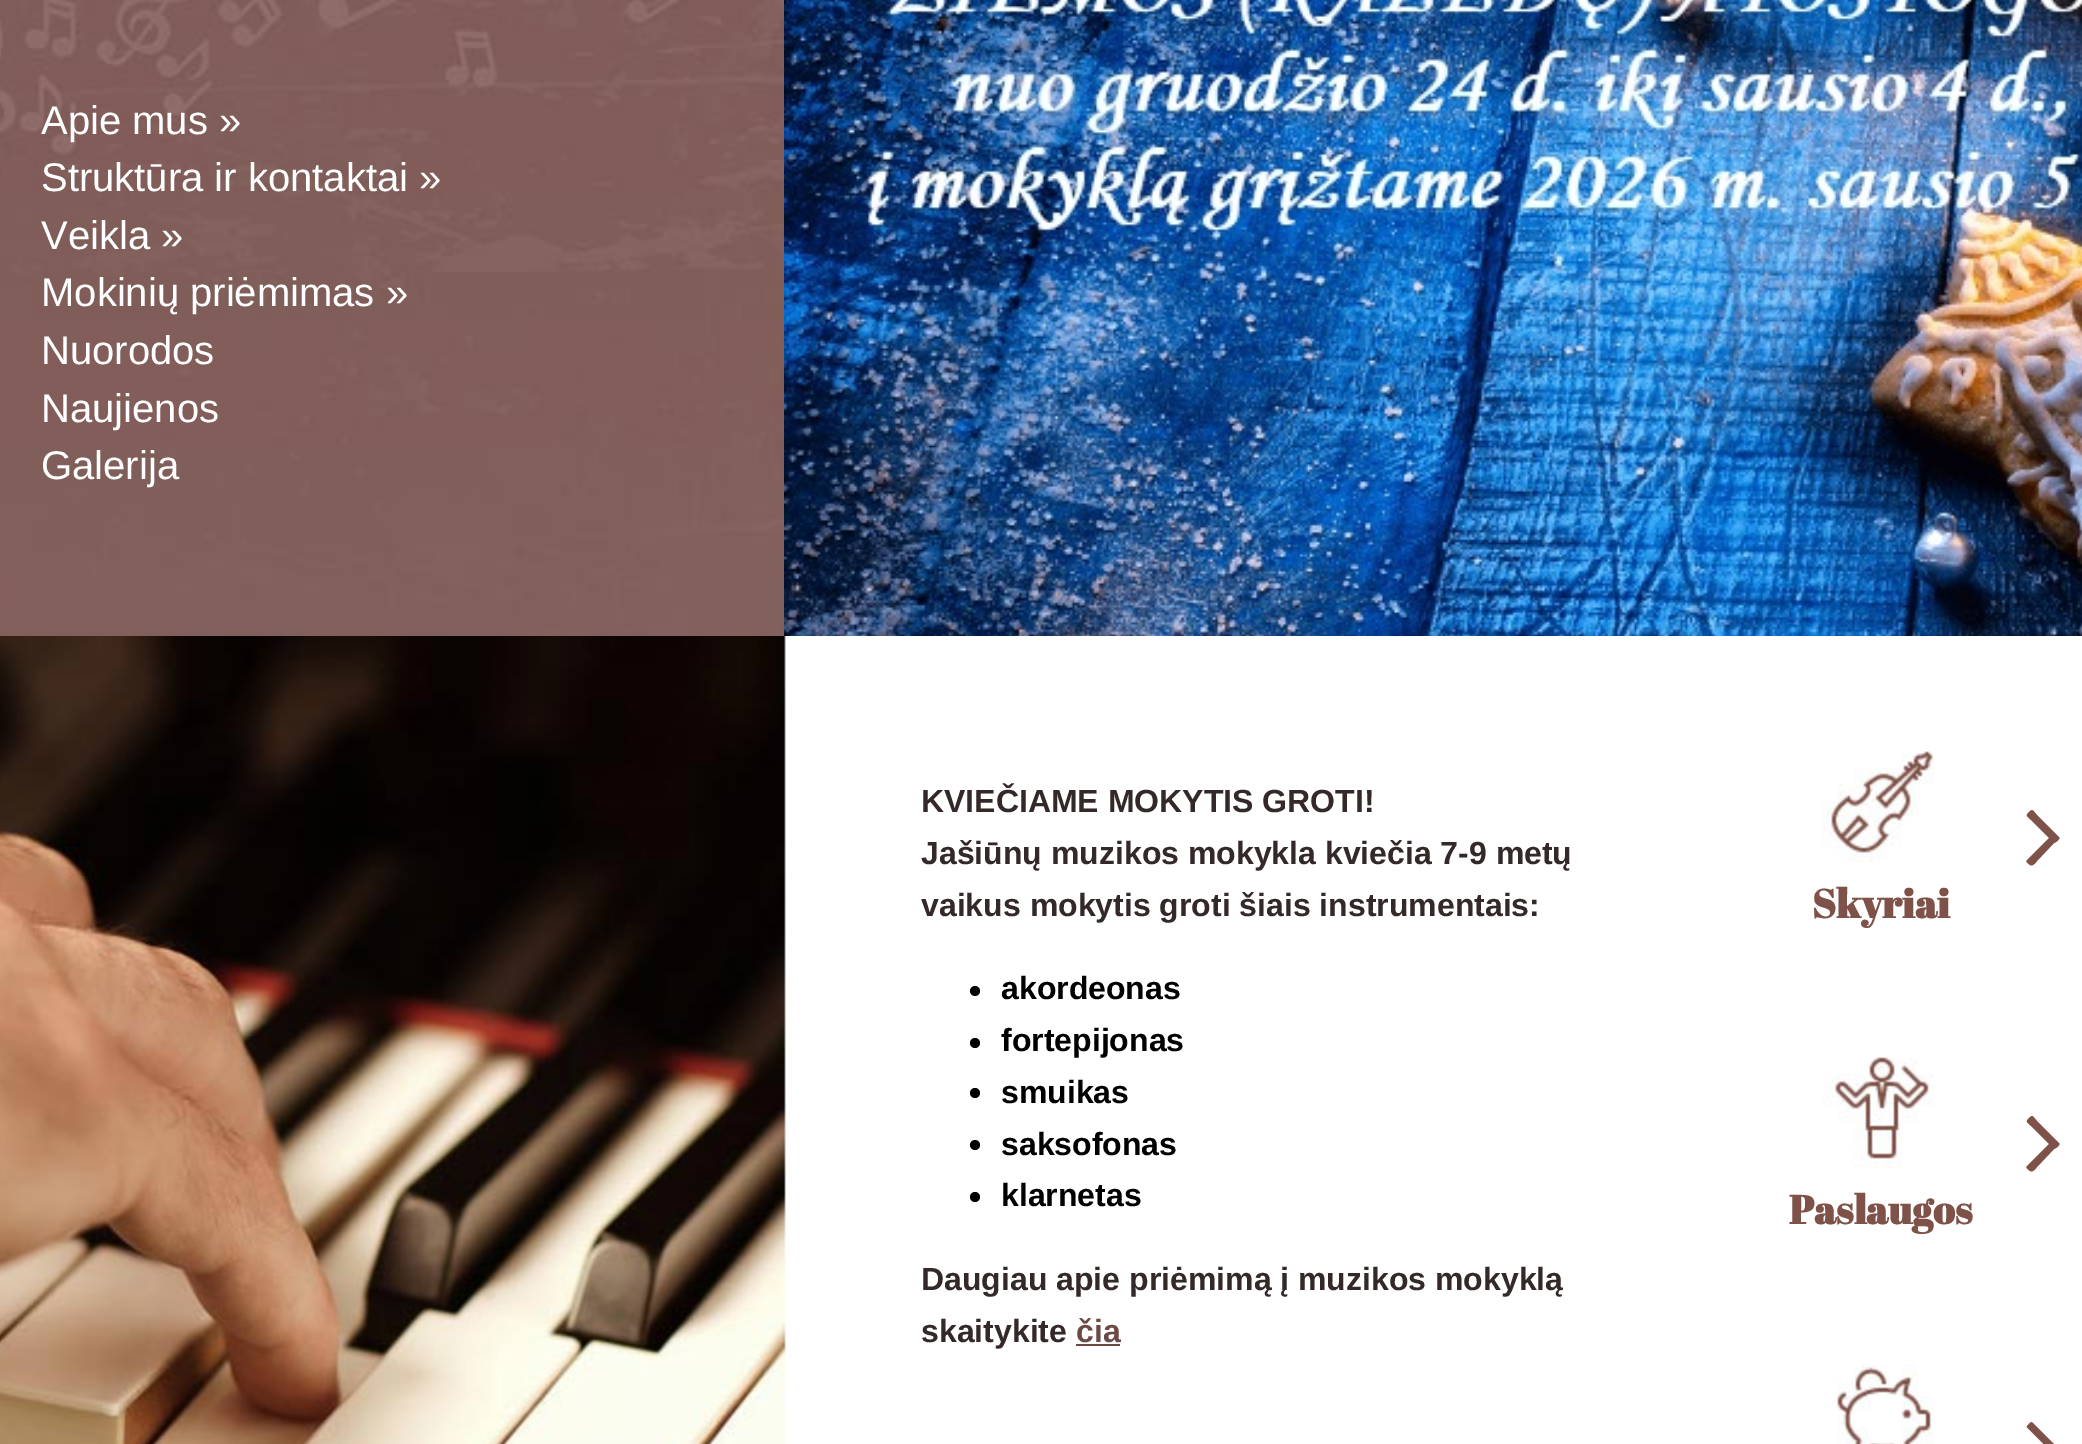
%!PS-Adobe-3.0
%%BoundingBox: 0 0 2082 1444
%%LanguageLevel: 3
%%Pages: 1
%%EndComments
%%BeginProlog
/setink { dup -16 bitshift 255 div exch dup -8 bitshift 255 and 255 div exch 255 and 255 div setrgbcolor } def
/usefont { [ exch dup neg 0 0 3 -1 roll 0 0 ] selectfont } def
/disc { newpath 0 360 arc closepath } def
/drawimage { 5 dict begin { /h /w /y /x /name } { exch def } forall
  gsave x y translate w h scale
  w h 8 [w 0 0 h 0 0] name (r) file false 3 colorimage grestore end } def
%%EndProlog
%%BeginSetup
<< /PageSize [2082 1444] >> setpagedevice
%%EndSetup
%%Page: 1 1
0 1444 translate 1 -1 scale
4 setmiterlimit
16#FFFFFF setink
0 0 2082 1444 rectfill
(img1.raw) 0 0 784 636 drawimage
/LiberationSans-Regular 40 usefont
[
    [(Apie mus ») 41 134]
    [(Struktūra ir kontaktai ») 41 191]
    [(Veikla ») 41 249]
    [(Mokinių priėmimas ») 41 306]
    [(Nuorodos) 41 364]
    [(Naujienos) 41 422]
    [(Galerija) 41 479]
] { aload pop moveto show } forall
(img2.raw) 784 0 1298 636 drawimage
(img3.raw) 0 636 787 808 drawimage
/LiberationSans-Bold 32 usefont
16#332928 setink
[
    [(KVIEČIAME MOKYTIS GROTI!) 921 812]
    [(Jašiūnų muzikos mokykla kviečia 7-9 metų) 921 864]
    [(vaikus mokytis groti šiais instrumentais:) 921 916]
] { aload pop moveto show } forall
16#000000 setink
975 991 5 disc fill
1001 999 moveto (akordeonas) show
975 1043 5 disc fill
1001 1051 moveto (fortepijonas) show
975 1093 5 disc fill
1001 1103 moveto (smuikas) show
975 1145 5 disc fill
1001 1155 moveto (saksofonas) show
975 1197 5 disc fill
1001 1206 moveto (klarnetas) show
16#332928 setink
921 1290 moveto (Daugiau apie priėmimą į muzikos mokyklą) show
921 1342 moveto (skaitykite) show
16#6D4946 setink
1076 1342 moveto (čia) show
1076 1344 44 2 rectfill
(img4.raw) 1822 751 112 111 drawimage
16#7F5249 setink
2059 837 moveto 2061 839 2055 843 2054 843 curveto 2037 861 lineto 2037 861 2033 867 2030 865 curveto 2029 864 2025 862 2027 860 curveto 2049 838 lineto 2031 820 lineto 2027 816 2025 816 2029 812 curveto 2033 808 2033 811 2037 815 curveto closepath fill
/AbrilFatface-Bold 40 usefont
1812 918 moveto (Skyriai) show
(img5.raw) 1823 1057 111 111 drawimage
2059 1143 moveto 2061 1145 2055 1149 2054 1149 curveto 2037 1167 lineto 2037 1167 2033 1173 2030 1171 curveto 2029 1170 2025 1168 2027 1166 curveto 2049 1144 lineto 2031 1126 lineto 2027 1122 2025 1122 2029 1118 curveto 2033 1114 2033 1117 2037 1121 curveto closepath fill
1789 1224 moveto (Paslaugos) show
(img6.raw) 1837 1364 97 80 drawimage
(img7.raw) 2026 1422 28 22 drawimage
showpage
%%EOF
